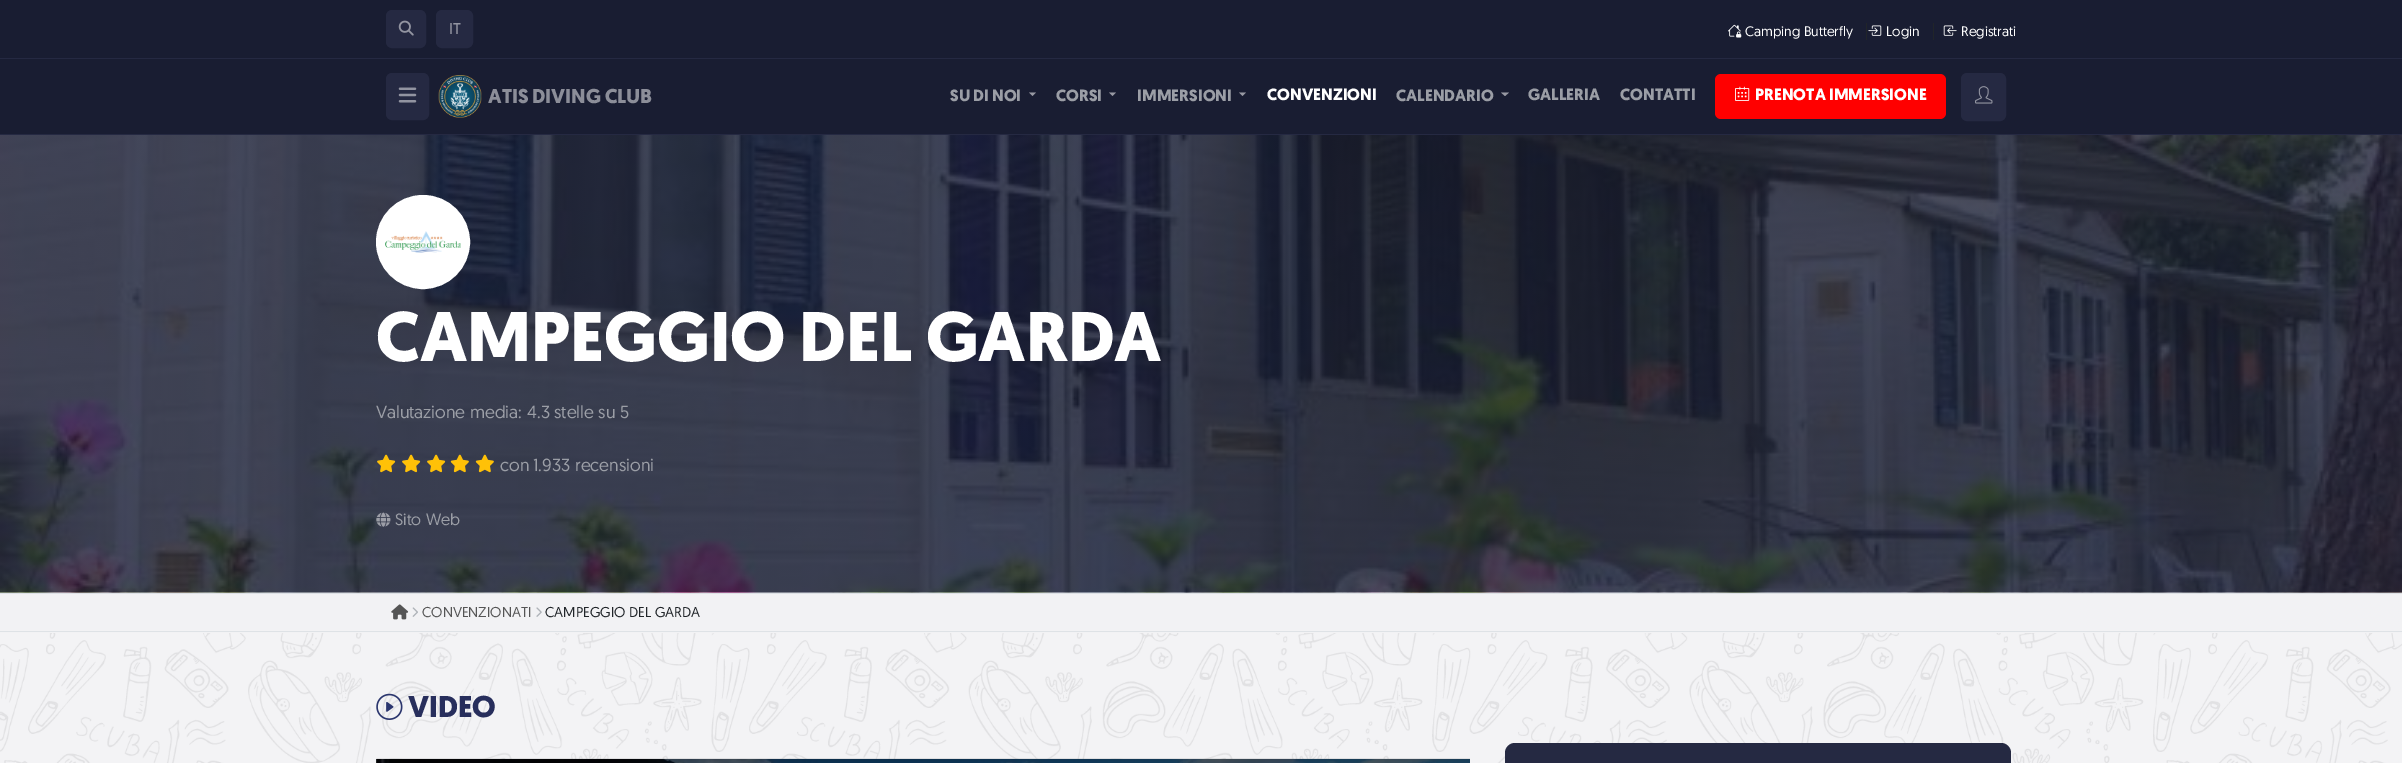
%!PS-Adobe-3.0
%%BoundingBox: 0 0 2402 763
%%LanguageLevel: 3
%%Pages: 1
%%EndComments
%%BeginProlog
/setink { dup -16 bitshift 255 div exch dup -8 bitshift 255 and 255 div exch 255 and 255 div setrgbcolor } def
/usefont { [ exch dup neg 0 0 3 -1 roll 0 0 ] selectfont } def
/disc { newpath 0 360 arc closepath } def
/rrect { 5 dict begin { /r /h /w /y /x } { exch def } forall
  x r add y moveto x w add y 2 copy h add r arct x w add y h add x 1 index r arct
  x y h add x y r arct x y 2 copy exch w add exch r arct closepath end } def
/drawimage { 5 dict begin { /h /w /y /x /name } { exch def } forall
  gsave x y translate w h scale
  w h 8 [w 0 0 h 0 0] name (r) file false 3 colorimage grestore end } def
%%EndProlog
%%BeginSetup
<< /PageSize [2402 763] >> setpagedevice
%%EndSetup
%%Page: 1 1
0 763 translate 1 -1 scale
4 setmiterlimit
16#191D32 setink
0 0 2402 763 rectfill
16#252942 setink
0 58 2402 1 rectfill
387.5 11.5 37 35 4.5 rrect gsave fill grestore
3 setlinewidth
stroke
(img1.raw) 398 20 16 16 drawimage
437.5 11.5 34 35 4.5 rrect gsave fill grestore
stroke
/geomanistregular-Bold 15 usefont
16#9294A1 setink
449 34 moveto (IT) show
16#212529 setink
1866 23 1 17 rectfill
(img2.raw) 1728 24 14 14 drawimage
/geomanistregular-Regular 13.75 usefont
16#FFFFFF setink
1745 36 moveto (Camping Butterfly) show
16#212529 setink
1933 23 1 17 rectfill
(img3.raw) 1868 25 14 11 drawimage
16#FFFFFF setink
1886 36 moveto (Login) show
(img4.raw) 1943 25 14 11 drawimage
1961 36 moveto (Registrati) show
16#252942 setink
0 134 2402 1 rectfill
387.5 74.5 40 44 4.5 rrect gsave fill grestore
stroke
(img5.raw) 398 87 19 16 drawimage
(img6.raw) 438 75 44 43 drawimage
/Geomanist-Bold 20 usefont
16#8C8E99 setink
488 103 moveto (ATIS DIVING CLUB) show
/Geomanist-Bold 16.25 usefont
16#9B9EA6 setink
950 101 moveto (SU DI NOI) show
16#9899A3 setink
1029 92.5 moveto 1036 92.5 lineto 1032.5 96 lineto closepath fill
16#9B9EA6 setink
1056 101 moveto (CORSI) show
16#9899A3 setink
1109 92.5 moveto 1116 92.5 lineto 1112.5 96 lineto closepath fill
16#9B9EA6 setink
1137 101 moveto (IMMERSIONI) show
16#9899A3 setink
1239 92.5 moveto 1246 92.5 lineto 1242.5 96 lineto closepath fill
16#FFFFFF setink
1267 100 moveto (CONVENZIONI) show
16#9B9EA6 setink
1396 101 moveto (CALENDARIO) show
16#9899A3 setink
1501 92.5 moveto 1509 92.5 lineto 1505 96 lineto closepath fill
16#9B9EA6 setink
1528 100 moveto (GALLERIA) show
1620 100 moveto (CONTATTI) show
16#FF0000 setink
1715 74 231 45 6 rrect fill
(img7.raw) 1735 86 15 15 drawimage
16#FFFFFF setink
1755 100 moveto (PRENOTA IMMERSIONE) show
16#252942 setink
1963 75 41 44 4 rrect gsave fill grestore
4 setlinewidth
stroke
(img8.raw) 1975 86 18 18 drawimage
16#F2F2F4 setink
0 592 2402 171 rectfill
(img9.raw) 0 592 2402 171 drawimage
(img10.raw) 0 135 2402 458 drawimage
16#FFFFFF setink
423 242 45 disc gsave fill grestore
stroke
(img11.raw) 385 231 76 22 drawimage
/Geomanist-Bold 70 usefont
376 361 moveto (CAMPEGGIO DEL GARDA) show
/geomanistregular-Regular 17.5 usefont
16#9B9EA6 setink
376 418 moveto (Valutazione media:) show
527 418 moveto (4.3 stelle su 5) show
(img12.raw) 377 454 19 19 drawimage
(img13.raw) 402 454 19 19 drawimage
(img14.raw) 427 454 19 19 drawimage
(img15.raw) 450 454 19 19 drawimage
(img16.raw) 475 454 19 19 drawimage
[
    [(con) 500 471]
    [(1.933) 533 471]
    [(recensioni) 575 471]
] { aload pop moveto show } forall
(img17.raw) 376 512 15 15 drawimage
/geomanistregular-Regular 16.25 usefont
395 525 moveto (Sito Web) show
[
    [0 594 2402 39 16#F2F2F4]
    [0 593 2402 1 16#DEE2E6]
    [0 631 2402 1 16#DEE2E6]
] { aload pop setink rectfill } forall
(img18.raw) 391 604 18 16 drawimage
(img19.raw) 412 607 6 10 drawimage
/geomanistregular-Regular 14.25 usefont
16#555555 setink
422 617 moveto (CONVENZIONATI) show
(img20.raw) 536 607 6 10 drawimage
16#212529 setink
545 617 moveto (CAMPEGGIO DEL GARDA) show
(img21.raw) 376 693 27 27 drawimage
/Geomanist-Bold 30 usefont
16#272E5C setink
408 717 moveto (VIDEO) show
(img22.raw) 376 758 1094 5 drawimage
16#252942 setink
1505 743 506 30 10 rrect fill
showpage
%%EOF
